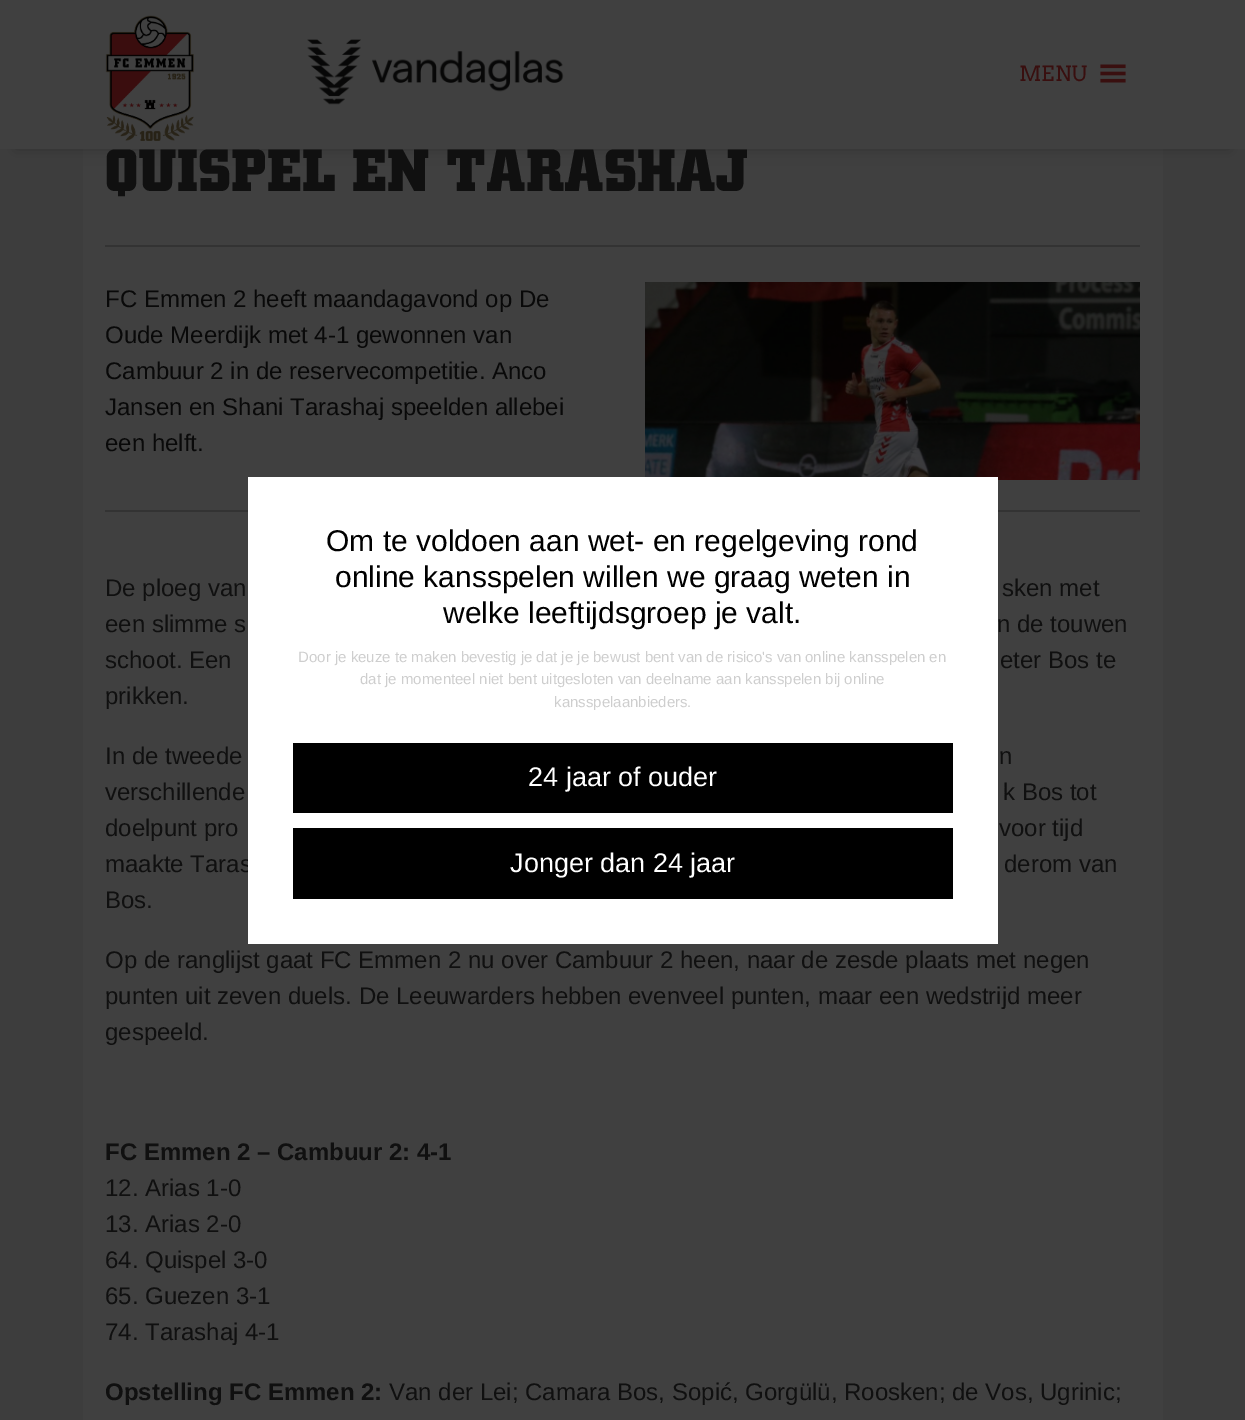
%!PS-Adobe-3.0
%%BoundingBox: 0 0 1245 1420
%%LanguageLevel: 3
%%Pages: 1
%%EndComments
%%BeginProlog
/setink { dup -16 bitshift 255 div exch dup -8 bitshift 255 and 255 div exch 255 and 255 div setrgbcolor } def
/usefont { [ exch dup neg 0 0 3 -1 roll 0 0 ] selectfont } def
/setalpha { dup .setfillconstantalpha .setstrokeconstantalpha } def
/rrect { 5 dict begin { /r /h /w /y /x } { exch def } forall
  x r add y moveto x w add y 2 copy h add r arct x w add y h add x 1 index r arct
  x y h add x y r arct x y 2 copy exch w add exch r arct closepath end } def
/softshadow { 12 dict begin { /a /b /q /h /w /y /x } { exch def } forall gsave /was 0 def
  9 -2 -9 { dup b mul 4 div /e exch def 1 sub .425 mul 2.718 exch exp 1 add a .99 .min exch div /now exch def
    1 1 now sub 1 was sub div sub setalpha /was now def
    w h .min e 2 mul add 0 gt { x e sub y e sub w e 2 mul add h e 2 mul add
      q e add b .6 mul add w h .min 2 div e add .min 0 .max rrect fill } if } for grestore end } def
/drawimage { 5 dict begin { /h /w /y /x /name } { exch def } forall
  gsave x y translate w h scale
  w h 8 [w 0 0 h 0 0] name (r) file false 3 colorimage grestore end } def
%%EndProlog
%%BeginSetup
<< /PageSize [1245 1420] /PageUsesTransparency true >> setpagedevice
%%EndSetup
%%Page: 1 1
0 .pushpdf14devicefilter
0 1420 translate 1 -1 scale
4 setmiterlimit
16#3D3D3D setink
0 0 1245 1420 rectfill
16#404040 setink
83 149 1080 1271 rectfill
16#000000 setink
15 30 1215 119 0 7.5 0.2 softshadow
16#404040 setink
0 0 1245 149 rectfill
(img1.raw) 105 15 89 126 drawimage
(img2.raw) 307 39 257 66 drawimage
/Arvo-Regular 21 usefont
16#390F0F setink
1019 81 moveto (MENU) show
(img3.raw) 1100 64 26 19 drawimage
/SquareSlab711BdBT-Bold 60 usefont
16#101010 setink
105 191 moveto (QUISPEL EN TARASHAJ) show
16#333333 setink
105 245 1035 2 rectfill
/LiberationSans-Regular 24 usefont
16#090909 setink
[
    [(FC Emmen 2 heeft maandagavond op De) 105 307]
    [(Oude Meerdijk met 4-1 gewonnen van) 105 343]
    [(Cambuur 2 in de reservecompetitie. Anco) 105 379]
    [(Jansen en Shani Tarashaj speelden allebei) 105 415]
    [(een helft.) 105 451]
] { aload pop moveto show } forall
(img4.raw) 645 282 495 198 drawimage
16#333333 setink
105 510 1035 2 rectfill
16#101010 setink
[
    [(De ploeg van) 105 596]
    [(sken met) 1002 596]
    [(een slimme s) 105 632]
    [(n de touwen) 997 632]
    [(schoot. Een) 105 668]
    [(eter Bos te) 1000 668]
    [(prikken.) 105 704]
    [(In de tweede) 105 764]
    [(n) 999 764]
    [(verschillende) 105 800]
    [(k Bos tot) 1003 800]
    [(doelpunt pro) 105 836]
    [(voor tijd) 999 836]
    [(maakte Taras) 105 872]
    [(derom van) 1004 872]
    [(Bos.) 105 908]
    [(Op de ranglijst gaat FC Emmen 2 nu over Cambuur 2 heen, naar de zesde plaats met negen) 105 968]
    [(punten uit zeven duels. De Leeuwarders hebben evenveel punten, maar een wedstrijd meer) 105 1004]
    [(gespeeld.) 105 1040]
] { aload pop moveto show } forall
/LiberationSans-Bold 24 usefont
105 1160 moveto (FC Emmen 2 – Cambuur 2: 4-1) show
/LiberationSans-Regular 24 usefont
[
    [(12. Arias 1-0) 105 1196]
    [(13. Arias 2-0) 105 1232]
    [(64. Quispel 3-0) 105 1268]
    [(65. Guezen 3-1) 105 1304]
    [(74. Tarashaj 4-1) 105 1340]
] { aload pop moveto show } forall
/LiberationSans-Bold 24 usefont
105 1400 moveto (Opstelling FC Emmen 2:) show
/LiberationSans-Regular 24 usefont
389 1400 moveto (Van der Lei; Camara Bos, Sopić, Gorgülü, Roosken; de Vos, Ugrinic;) show
16#FFFFFF setink
248 477 750 467 rectfill
/LiberationSans-Regular 30 usefont
16#000000 setink
[
    [(Om te voldoen aan wet- en regelgeving rond) 326 551]
    [(online kansspelen willen we graag weten in) 335 587]
    [(welke leeftijdsgroep je valt.) 443 623]
] { aload pop moveto show } forall
/LiberationSans-Regular 15 usefont
16#CECECE setink
[
    [(Door je keuze te maken bevestig je dat je je bewust bent van de risico's van online kansspelen en) 298 662]
    [(dat je momenteel niet bent uitgesloten van deelname aan kansspelen bij online) 360 684]
    [(kansspelaanbieders.) 554 707]
] { aload pop moveto show } forall
16#000000 setink
293 743 660 70 rectfill
/LiberationSans-Regular 27 usefont
16#FFFFFF setink
528 786 moveto (24 jaar of ouder) show
16#000000 setink
293 828 660 71 rectfill
16#FFFFFF setink
510 872 moveto (Jonger dan 24 jaar) show
.poppdf14devicefilter showpage
%%EOF
